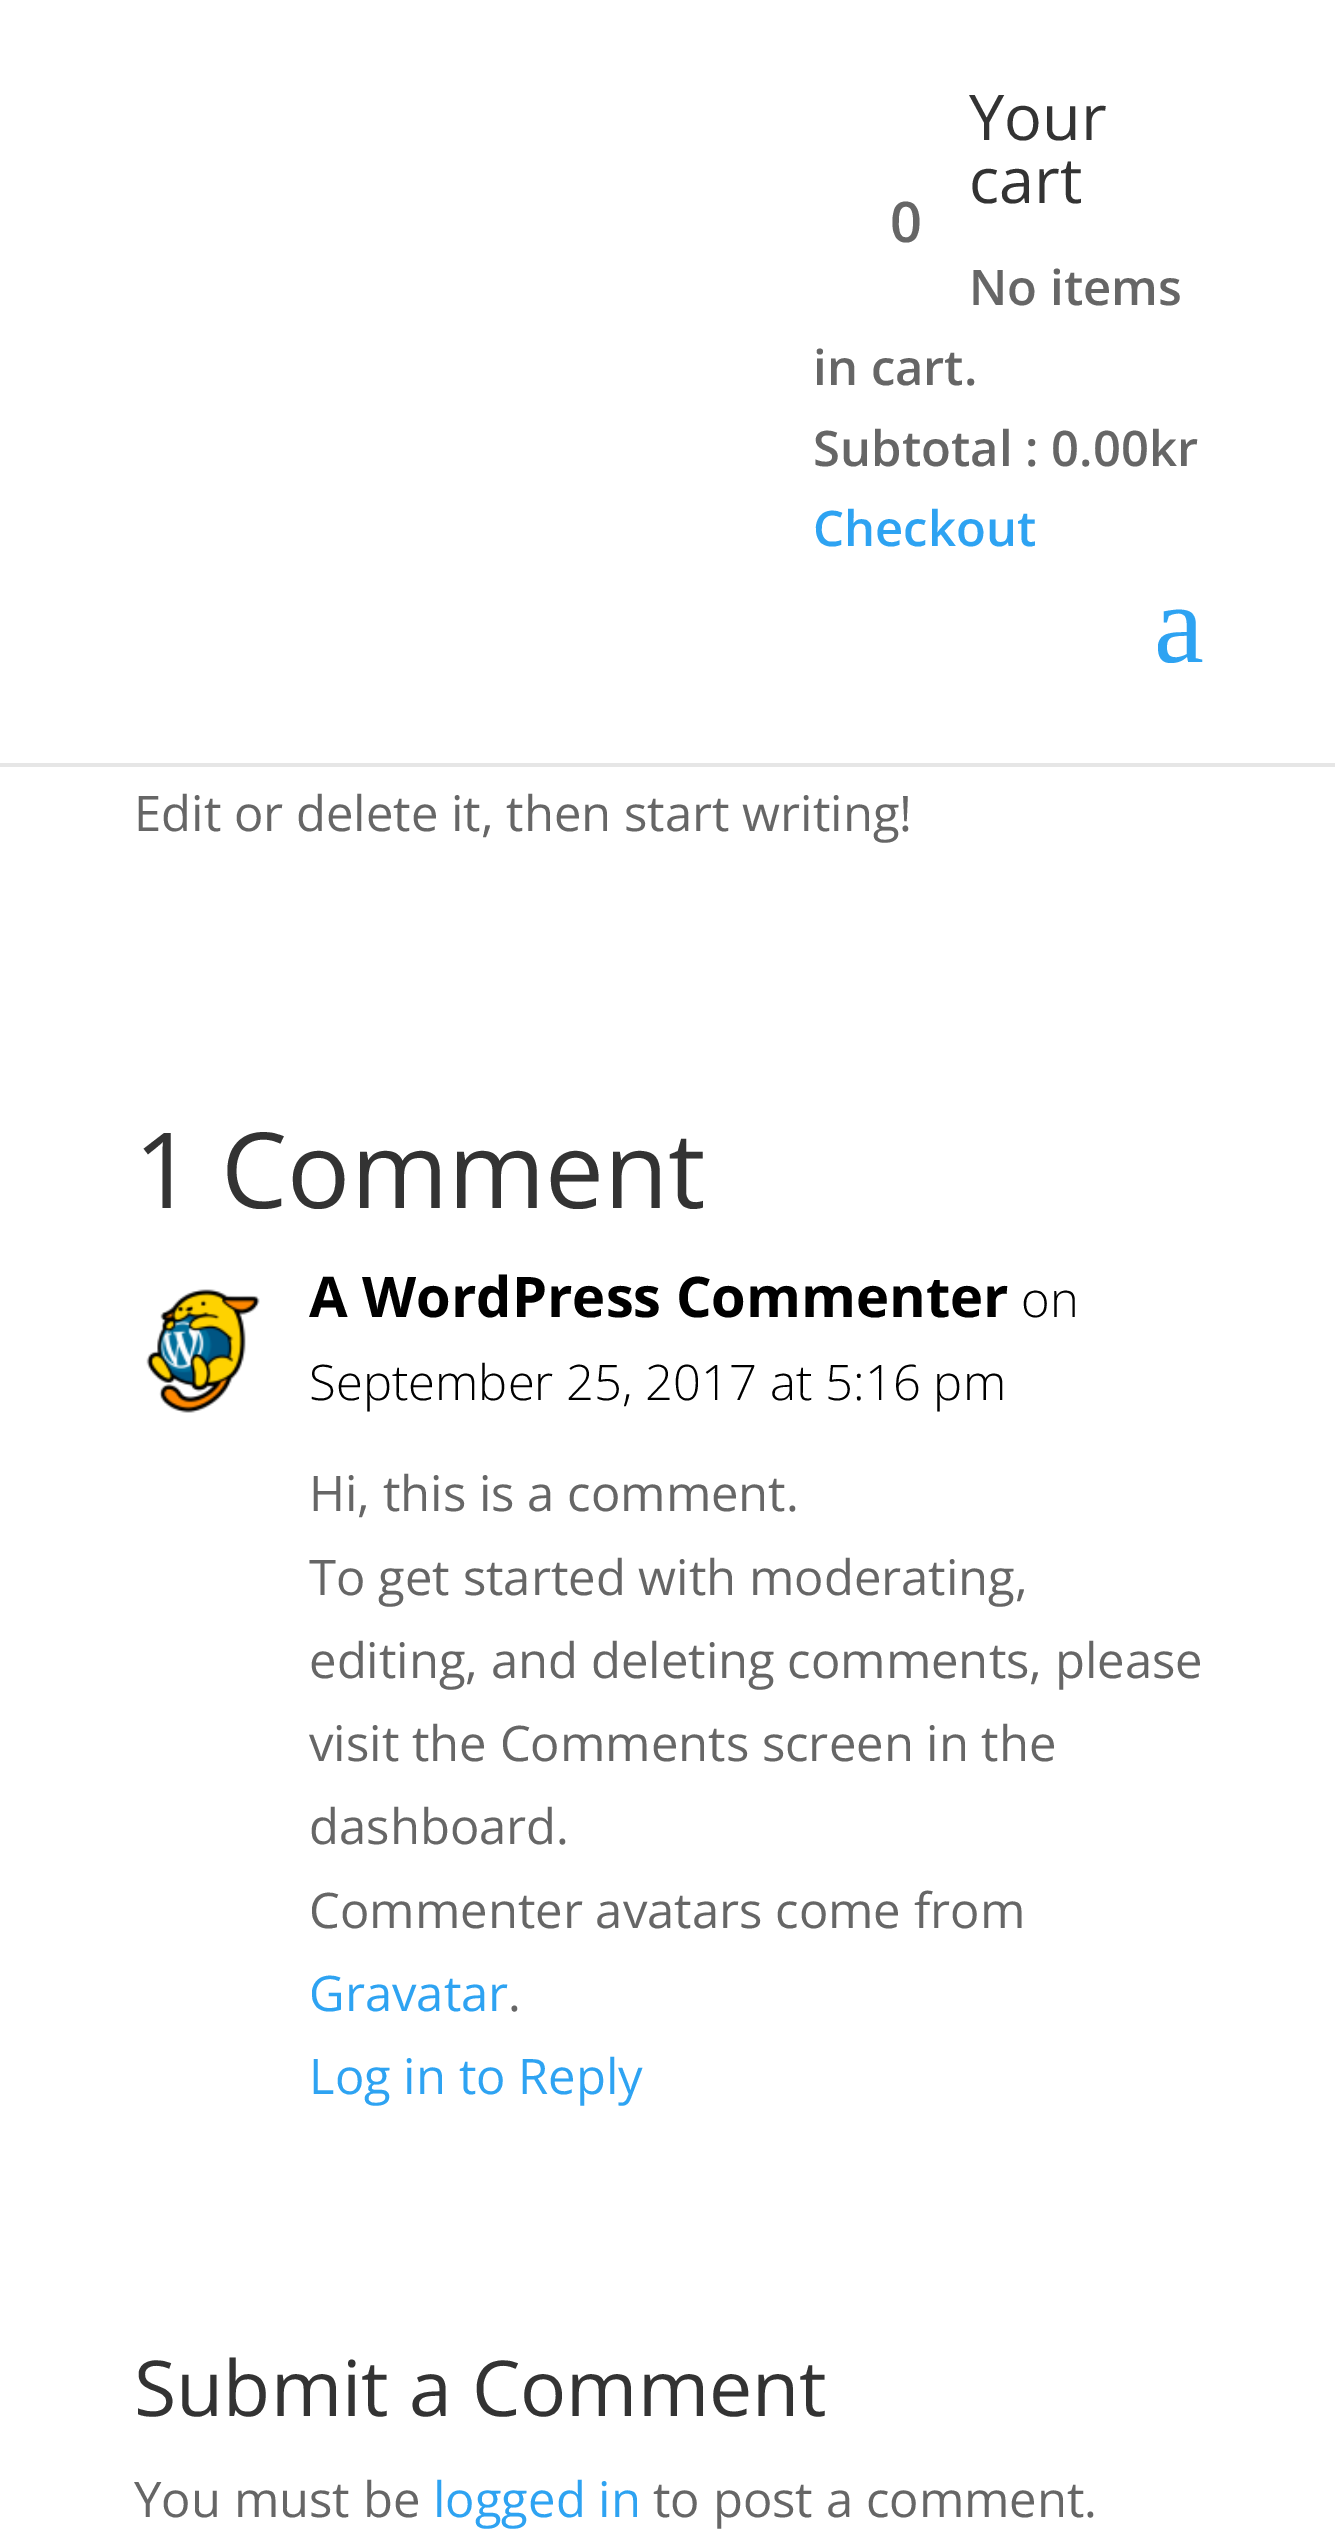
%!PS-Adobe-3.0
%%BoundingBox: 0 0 1335 2535
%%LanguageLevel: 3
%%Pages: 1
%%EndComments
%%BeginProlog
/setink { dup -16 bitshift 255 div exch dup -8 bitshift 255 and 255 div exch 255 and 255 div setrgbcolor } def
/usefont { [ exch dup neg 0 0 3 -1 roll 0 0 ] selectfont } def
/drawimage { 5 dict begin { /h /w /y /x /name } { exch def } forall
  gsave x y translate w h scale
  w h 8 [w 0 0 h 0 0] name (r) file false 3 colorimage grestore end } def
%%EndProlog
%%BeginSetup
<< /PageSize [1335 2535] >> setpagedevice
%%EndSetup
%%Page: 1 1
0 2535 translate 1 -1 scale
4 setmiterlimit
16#FFFFFF setink
0 0 1335 2535 rectfill
16#E6E6E6 setink
0 763 1335 4 rectfill
/OpenSans-Regular 63 usefont
16#333333 setink
969 140 moveto (Your) show
969 203 moveto (cart) show
/OpenSans-SemiBold 49 usefont
16#666666 setink
[
    [(No items) 969 305]
    [(in cart.) 813 385]
    [(Subtotal : 0.00kr) 813 466]
] { aload pop moveto show } forall
16#2EA3F2 setink
813 546 moveto (Checkout) show
/OpenSans-SemiBold 56 usefont
16#666666 setink
890 242 moveto (0) show
/LiberationSerif-Regular 112 usefont
16#2EA3F2 setink
1154 662 moveto (a) show
/OpenSans-Regular 49 usefont
16#666666 setink
134 831 moveto (Edit or delete it, then start writing!) show
/OpenSans-Regular 105 usefont
16#333333 setink
134 1208 moveto (1 Comment) show
(img1.raw) 146 1289 114 124 drawimage
/OpenSans-Bold 56 usefont
16#000000 setink
309 1317 moveto (A WordPress Commenter) show
/OpenSans-Light 49 usefont
1021 1317 moveto (on) show
309 1400 moveto (September 25, 2017 at 5:16 pm) show
/OpenSans-Regular 49 usefont
16#666666 setink
[
    [(Hi, this is a comment.) 309 1511]
    [(To get started with moderating,) 309 1595]
    [(editing, and deleting comments, please) 309 1678]
    [(visit the Comments screen in the) 309 1761]
    [(dashboard.) 309 1844]
    [(Commenter avatars come from) 309 1928]
] { aload pop moveto show } forall
16#2EA3F2 setink
309 2011 moveto (Gravatar) show
16#666666 setink
508 2011 moveto (.) show
16#2EA3F2 setink
309 2094 moveto (Log in to Reply) show
/OpenSans-Regular 77 usefont
16#333333 setink
134 2416 moveto (Submit a Comment) show
/OpenSans-Regular 49 usefont
16#666666 setink
134 2517 moveto (You must be) show
16#2EA3F2 setink
433 2517 moveto (logged in) show
16#666666 setink
653 2517 moveto (to post a comment.) show
showpage
%%EOF
